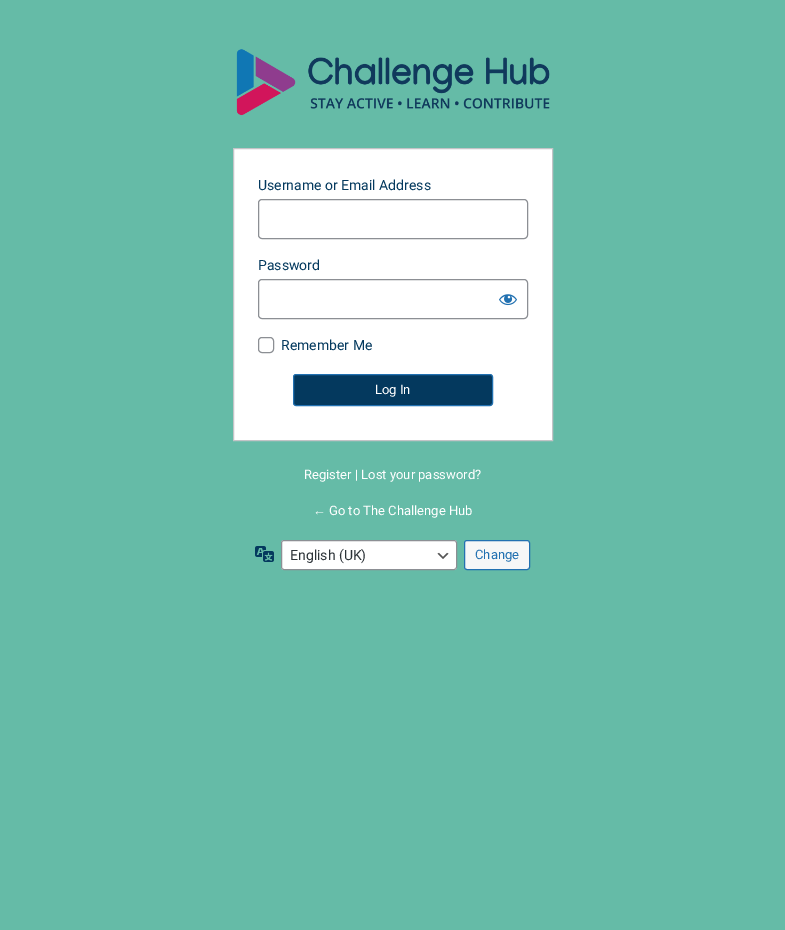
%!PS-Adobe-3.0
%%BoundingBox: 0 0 785 930
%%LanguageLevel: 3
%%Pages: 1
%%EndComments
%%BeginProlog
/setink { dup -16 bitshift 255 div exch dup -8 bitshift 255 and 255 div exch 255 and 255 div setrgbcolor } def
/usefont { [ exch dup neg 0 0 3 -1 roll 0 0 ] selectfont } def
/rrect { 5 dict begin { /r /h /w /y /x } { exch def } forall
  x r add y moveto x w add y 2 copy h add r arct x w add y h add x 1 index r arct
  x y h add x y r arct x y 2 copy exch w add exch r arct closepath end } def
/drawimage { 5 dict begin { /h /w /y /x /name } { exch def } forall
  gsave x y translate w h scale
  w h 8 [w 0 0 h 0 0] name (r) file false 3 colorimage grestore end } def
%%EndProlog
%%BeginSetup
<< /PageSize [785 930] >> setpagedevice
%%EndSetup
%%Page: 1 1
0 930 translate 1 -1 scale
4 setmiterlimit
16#65BBA7 setink
0 0 785 930 rectfill
(img1.raw) 236 49 314 67 drawimage
16#FFFFFF setink
233.5 148.5 moveto 552.5 148.5 lineto 552.5 440.5 lineto 233.5 440.5 lineto closepath gsave fill grestore
16#C3C4C7 setink
stroke
/Roboto-Regular 14 usefont
16#04395E setink
258 190 moveto (Username or Email Address) show
16#8C8F94 setink
258.5 199.5 269 39 3.5 rrect stroke
16#04395E setink
258 270 moveto (Password) show
16#8C8F94 setink
258.5 279.5 269 39 3.5 rrect stroke
(img2.raw) 499 294 18 12 drawimage
258.5 337.5 15 15 3.5 rrect stroke
16#04395E setink
281 350 moveto (Remember Me) show
293.5 374.5 199 31 2.5 rrect gsave fill grestore
16#2271B1 setink
stroke
/Roboto-Regular 13 usefont
16#FFFFFF setink
375 394 moveto (Log In) show
304 479 moveto (Register | Lost your password?) show
/LiberationSans-Regular 13 usefont
313 515 moveto (←) show
/Roboto-Regular 13 usefont
329 515 moveto (Go to The Challenge Hub) show
(img3.raw) 255 546 19 16 drawimage
281 540 176 30 3 rrect fill
(img4.raw) 437 552 12 7 drawimage
16#8C8F94 setink
281.5 540.5 175 29 2.5 rrect stroke
/Roboto-Regular 14 usefont
16#2C3338 setink
290 560 moveto (English \(UK\)) show
16#F6F7F7 setink
464.5 540.5 65 29 2.5 rrect gsave fill grestore
16#2271B1 setink
stroke
/Roboto-Regular 13 usefont
475 559 moveto (Change) show
showpage
%%EOF
